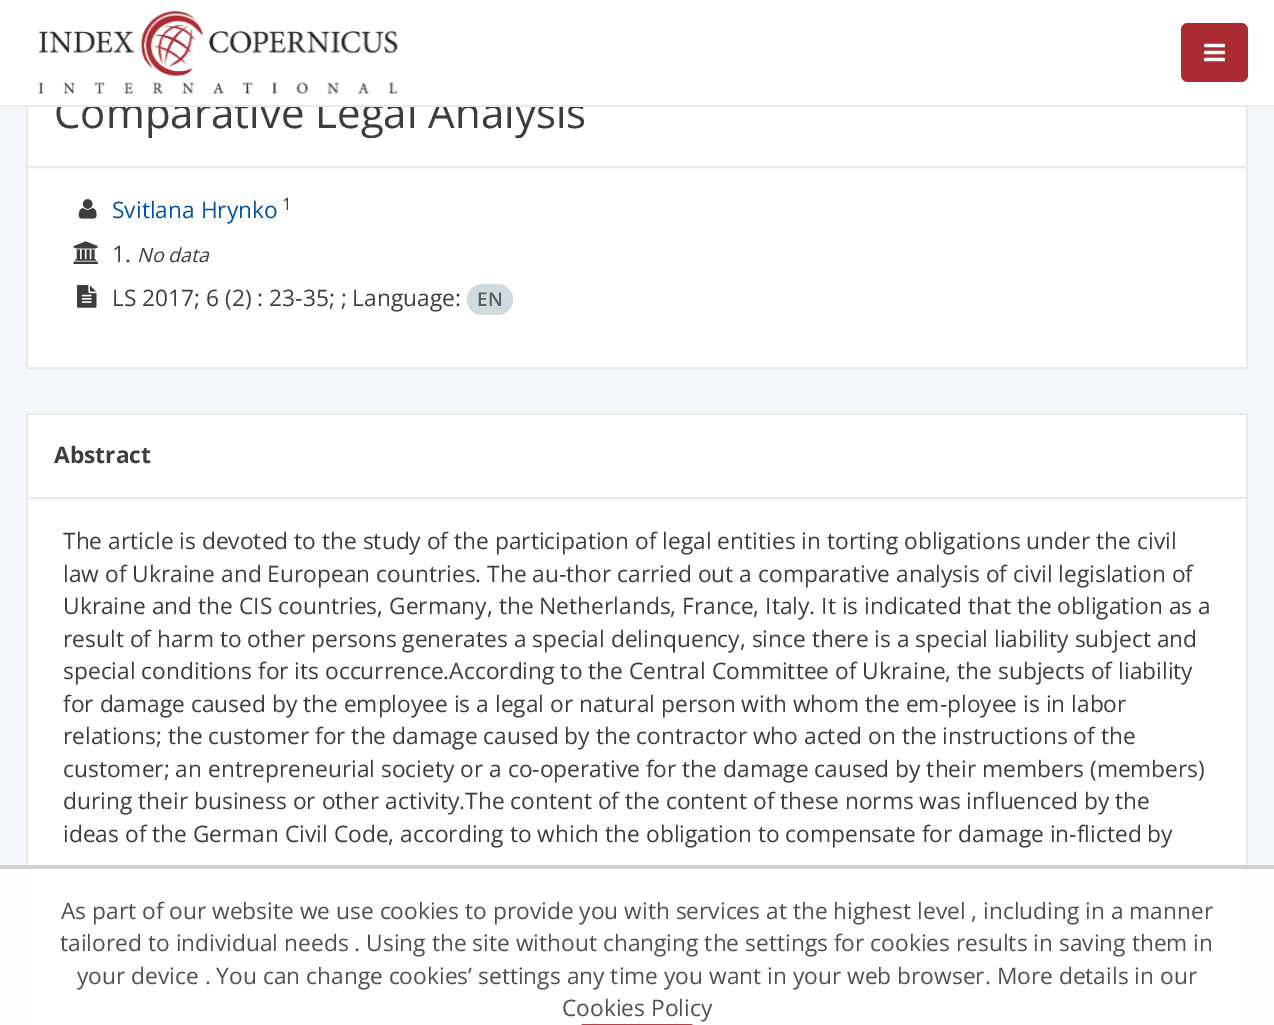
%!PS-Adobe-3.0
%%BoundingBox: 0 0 1274 1025
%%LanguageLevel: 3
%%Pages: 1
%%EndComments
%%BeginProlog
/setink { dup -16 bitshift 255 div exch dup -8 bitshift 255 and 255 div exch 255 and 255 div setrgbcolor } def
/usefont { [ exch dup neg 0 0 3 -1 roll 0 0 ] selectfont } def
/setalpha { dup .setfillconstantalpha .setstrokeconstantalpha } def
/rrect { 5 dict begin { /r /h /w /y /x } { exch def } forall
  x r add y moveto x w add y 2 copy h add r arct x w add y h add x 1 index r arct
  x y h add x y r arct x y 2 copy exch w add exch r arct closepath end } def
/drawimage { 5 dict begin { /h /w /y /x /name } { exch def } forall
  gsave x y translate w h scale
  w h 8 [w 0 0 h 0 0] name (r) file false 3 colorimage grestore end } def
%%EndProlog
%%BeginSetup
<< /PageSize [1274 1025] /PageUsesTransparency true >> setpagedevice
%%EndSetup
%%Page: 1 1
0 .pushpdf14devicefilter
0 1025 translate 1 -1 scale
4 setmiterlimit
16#F4F6FA setink
0 0 1274 1025 rectfill
16#FFFFFF setink
28 107 1218 59 rectfill
/OpenSans-Regular 42 usefont
16#3D3D3D setink
54 128 moveto (Comparative Legal Analysis) show
16#FFFFFF setink
0 0 1274 105 rectfill
16#E7EAEC setink
0 105 1274 2 rectfill
(img1.raw) 38 10 360 84 drawimage
16#AA2B31 setink
1181 23 67 59 7 rrect fill
(img2.raw) 1204 43 21 19 drawimage
16#E7EAEC setink
1246 107 2 59 rectfill
26 107 2 59 rectfill
16#FFFFFF setink
27 167 moveto 1247 167 lineto 1247 368 lineto 27 368 lineto closepath gsave fill grestore
16#E7EAEC setink
2 setlinewidth
stroke
(img3.raw) 78 199 19 20 drawimage
/OpenSans-Regular 22.75 usefont
16#00539B setink
112 218 moveto (Svitlana Hrynko) show
/OpenSans-Regular 17 usefont
16#3D3D3D setink
282 210 moveto (1) show
(img4.raw) 73 241 25 23 drawimage
/OpenSans-Regular 22.75 usefont
112 262 moveto (1.) show
/OpenSans-Italic 19.5 usefont
137 262 moveto (No data) show
(img5.raw) 77 285 20 23 drawimage
/OpenSans-Regular 22.75 usefont
112 306 moveto (LS 2017; 6 \(2\) : 23-35; ; Language:) show
16#D1DADE setink
467 284 46 31 15.5 rrect fill
/OpenSans-SemiBold 19 usefont
16#5E5E5E setink
477 306 moveto (EN) show
[
    [28 415 1218 82 16#FFFFFF]
    [26 413 1222 2 16#E7EAEC]
    [1246 413 2 84 16#E7EAEC]
    [26 413 2 84 16#E7EAEC]
] { aload pop setink rectfill } forall
/OpenSans-Bold 22.75 usefont
16#3D3D3D setink
54 463 moveto (Abstract) show
16#FFFFFF setink
27 498 moveto 1247 498 lineto 1247 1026 lineto 27 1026 lineto closepath gsave fill grestore
16#E7EAEC setink
stroke
/OpenSans-Regular 22.75 usefont
16#3D3D3D setink
[
    [(The article is devoted to the study of the participation of legal entities in torting obligations under the civil) 63 549]
    [(law of Ukraine and European countries. The au-thor carried out a comparative analysis of civil legislation of) 63 582]
    [(Ukraine and the CIS countries, Germany, the Netherlands, France, Italy. It is indicated that the obligation as a) 63 614]
    [(result of harm to other persons generates a special delinquency, since there is a special liability subject and) 63 647]
    [(special conditions for its occurrence.According to the Central Committee of Ukraine, the subjects of liability) 63 679]
    [(for damage caused by the employee is a legal or natural person with whom the em-ployee is in labor) 63 712]
    [(relations; the customer for the damage caused by the contractor who acted on the instructions of the) 63 744]
    [(customer; an entrepreneurial society or a co-operative for the damage caused by their members \(members\)) 63 777]
    [(during their business or other activity.The content of the content of these norms was influenced by the) 63 809]
    [(ideas of the German Civil Code, according to which the obligation to compensate for damage in-flicted by) 63 842]
] { aload pop moveto show } forall
0.9 setalpha
16#FFFFFF setink
0 865 1274 160 rectfill
16#CCCCCC setink
0 865 1274 4 rectfill
1 setalpha
16#505050 setink
[
    [(As part of our website we use cookies to provide you with services at the highest level , including in a manner) 61 919]
    [(tailored to individual needs . Using the site without changing the settings for cookies results in saving them in) 60 951]
    [(your device . You can change cookies’ settings any time you want in your web browser. More details in our) 77 984]
    [(Cookies Policy) 562 1016]
] { aload pop moveto show } forall
0.9 setalpha
16#AA2B31 setink
579 1024 116 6 5 rrect fill
.poppdf14devicefilter showpage
%%EOF
